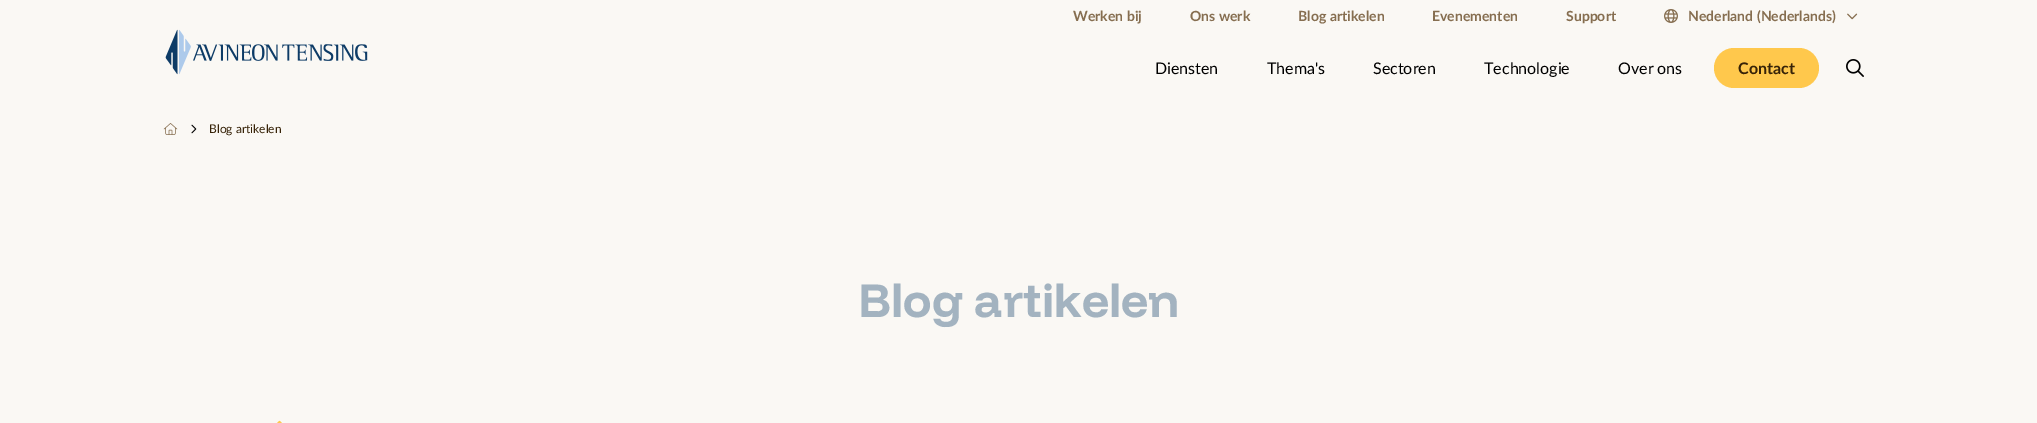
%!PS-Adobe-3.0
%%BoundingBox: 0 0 2037 423
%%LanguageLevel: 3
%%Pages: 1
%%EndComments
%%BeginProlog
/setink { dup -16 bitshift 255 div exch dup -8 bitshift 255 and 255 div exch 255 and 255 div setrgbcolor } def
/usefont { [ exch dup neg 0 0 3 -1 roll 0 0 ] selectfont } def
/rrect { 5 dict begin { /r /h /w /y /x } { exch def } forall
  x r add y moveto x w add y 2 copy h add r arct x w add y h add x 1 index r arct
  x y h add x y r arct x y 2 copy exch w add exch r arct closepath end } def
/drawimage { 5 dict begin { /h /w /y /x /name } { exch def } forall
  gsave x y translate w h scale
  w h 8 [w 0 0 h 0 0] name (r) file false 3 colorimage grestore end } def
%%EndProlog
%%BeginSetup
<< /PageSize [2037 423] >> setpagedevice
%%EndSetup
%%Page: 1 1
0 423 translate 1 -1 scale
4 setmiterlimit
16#FAF8F4 setink
0 0 2037 423 rectfill
(img1.raw) 165 29 203 46 drawimage
/Lato-Bold 14 usefont
16#866E50 setink
[
    [(Werken bij) 1073 21]
    [(Ons werk) 1190 21]
    [(Blog artikelen) 1298 21]
    [(Evenementen) 1432 21]
    [(Support) 1566 21]
] { aload pop moveto show } forall
(img2.raw) 1664 9 14 14 drawimage
1688 21 moveto (Nederland \(Nederlands\)) show
(img3.raw) 1847 13 11 7 drawimage
/Lato-Regular 16 usefont
16#000000 setink
[
    [(Diensten) 1155 74]
    [(Thema's) 1267 74]
    [(Sectoren) 1373 74]
    [(Technologie) 1484 74]
    [(Over ons) 1618 74]
] { aload pop moveto show } forall
16#FFC84C setink
1714 48 105 40 20 rrect fill
/Lato-Bold 16 usefont
16#372308 setink
1738 74 moveto (Contact) show
(img4.raw) 1846 59 18 18 drawimage
(img5.raw) 163 123 15 12 drawimage
(img6.raw) 191 124 6 10 drawimage
/Lato-Regular 12 usefont
209 133 moveto (Blog artikelen) show
/FunnelDisplay-Bold 48 usefont
16#A3B3C0 setink
858 317 moveto (Blog artikelen) show
(img7.raw) 277 420 5 3 drawimage
showpage
%%EOF
